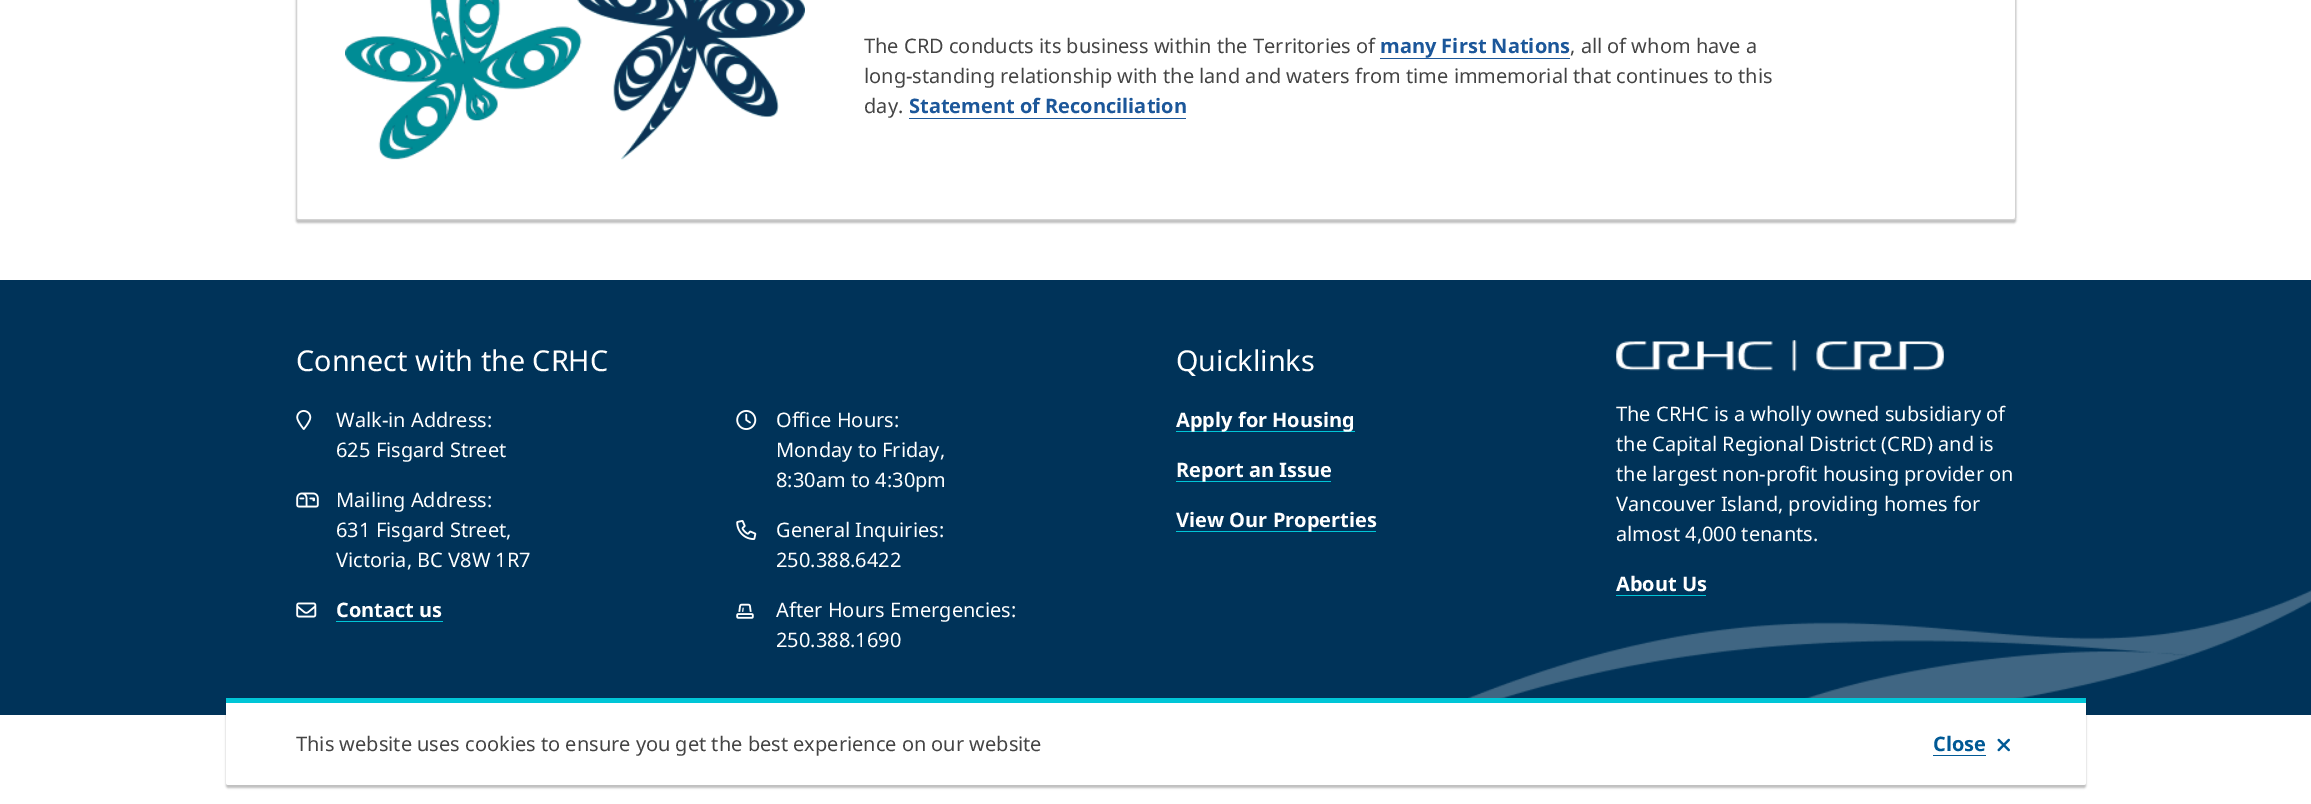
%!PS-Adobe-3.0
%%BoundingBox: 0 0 2311 804
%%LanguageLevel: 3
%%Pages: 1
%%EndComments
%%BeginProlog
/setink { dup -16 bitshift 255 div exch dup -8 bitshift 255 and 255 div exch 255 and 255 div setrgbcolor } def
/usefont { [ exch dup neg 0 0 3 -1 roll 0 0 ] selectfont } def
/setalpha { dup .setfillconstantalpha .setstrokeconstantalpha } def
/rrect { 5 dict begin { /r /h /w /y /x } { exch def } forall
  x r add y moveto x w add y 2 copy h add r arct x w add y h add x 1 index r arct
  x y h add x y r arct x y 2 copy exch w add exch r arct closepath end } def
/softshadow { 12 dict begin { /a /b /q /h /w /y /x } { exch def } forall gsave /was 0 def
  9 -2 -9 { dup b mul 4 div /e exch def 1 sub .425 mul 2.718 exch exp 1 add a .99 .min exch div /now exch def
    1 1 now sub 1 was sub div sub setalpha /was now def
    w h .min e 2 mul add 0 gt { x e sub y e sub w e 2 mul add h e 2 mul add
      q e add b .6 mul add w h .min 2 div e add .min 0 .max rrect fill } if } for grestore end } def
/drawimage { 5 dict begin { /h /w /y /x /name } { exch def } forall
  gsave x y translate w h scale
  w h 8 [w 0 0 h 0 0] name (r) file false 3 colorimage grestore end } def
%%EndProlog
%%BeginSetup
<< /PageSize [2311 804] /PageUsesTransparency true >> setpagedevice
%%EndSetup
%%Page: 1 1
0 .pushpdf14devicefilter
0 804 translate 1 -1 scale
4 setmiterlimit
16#FFFFFF setink
0 0 2311 804 rectfill
16#000000 setink
296 -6 1720 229 2.5 1 0.25 softshadow
16#FFFFFF setink
296.5 -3.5 1719 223 2 rrect gsave fill grestore
16#D3D3D3 setink
stroke
(img1.raw) 345 0 460 160 drawimage
/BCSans-Regular 20 usefont
16#444444 setink
864 53 moveto (The CRD conducts its business within the Territories of) show
/BCSans-Bold 20 usefont
16#1C579A setink
1380 53 moveto (many First Nations) show
1380 58 190 1 rectfill
/BCSans-Regular 20 usefont
16#444444 setink
[
    [(, all of whom have a) 1570 53]
    [(long-standing relationship with the land and waters from time immemorial that continues to this) 864 83]
    [(day.) 864 113]
] { aload pop moveto show } forall
/BCSans-Bold 20 usefont
16#1C579A setink
909 113 moveto (Statement of Reconciliation) show
909 118 277 1 rectfill
16#003359 setink
0 280 2311 435 rectfill
(img2.raw) 1468 590 843 108 drawimage
/BCSans-Regular 28.75 usefont
16#FFFFFF setink
296 371 moveto (Connect with the CRHC) show
(img3.raw) 296 410 16 20 drawimage
/BCSans-Regular 20 usefont
336 427 moveto (Walk-in Address:) show
336 457 moveto (625 Fisgard Street) show
(img4.raw) 296 492 23 16 drawimage
[
    [(Mailing Address:) 336 507]
    [(631 Fisgard Street,) 336 537]
    [(Victoria, BC V8W 1R7) 336 567]
] { aload pop moveto show } forall
(img5.raw) 296 602 21 16 drawimage
/BCSans-Bold 20 usefont
336 617 moveto (Contact us) show
16#00C6D7 setink
336 621 107 1 rectfill
(img6.raw) 736 410 21 20 drawimage
/BCSans-Regular 20 usefont
16#FFFFFF setink
[
    [(Office Hours:) 776 427]
    [(Monday to Friday,) 776 457]
    [(8:30am to 4:30pm) 776 487]
] { aload pop moveto show } forall
(img7.raw) 736 520 21 20 drawimage
776 537 moveto (General Inquiries:) show
776 567 moveto (250.388.6422) show
(img8.raw) 736 603 18 16 drawimage
776 617 moveto (After Hours Emergencies:) show
776 647 moveto (250.388.1690) show
/BCSans-Regular 28.75 usefont
1176 371 moveto (Quicklinks) show
16#00C6D7 setink
1176 431 179 1 rectfill
/BCSans-Bold 20 usefont
16#FFFFFF setink
1176 427 moveto (Apply for Housing) show
16#00C6D7 setink
1176 481 155 1 rectfill
16#FFFFFF setink
1176 477 moveto (Report an Issue) show
16#00C6D7 setink
1176 531 200 1 rectfill
16#FFFFFF setink
1176 527 moveto (View Our Properties) show
(img9.raw) 1616 340 328 32 drawimage
/BCSans-Regular 20 usefont
[
    [(The CRHC is a wholly owned subsidiary of) 1616 421]
    [(the Capital Regional District \(CRD\) and is) 1616 451]
    [(the largest non-profit housing provider on) 1616 481]
    [(Vancouver Island, providing homes for) 1616 511]
    [(almost 4,000 tenants.) 1616 541]
] { aload pop moveto show } forall
/BCSans-Bold 20 usefont
1616 591 moveto (About Us) show
16#00C6D7 setink
1616 595 90 1 rectfill
16#000000 setink
226 700 1860 88 2.5 1 0.25 softshadow
16#FFFFFF setink
226 698 moveto 2086 698 lineto 2086 782.5 lineto 2086 784 2085 785 2083.5 785 curveto 228.5 785 lineto 227 785 226 784 226 782.5 curveto closepath fill
16#00C6D7 setink
226 698 1860 5 rectfill
/BCSans-Regular 20 usefont
16#444444 setink
296 751 moveto (This website uses cookies to ensure you get the best experience on our website) show
/BCSans-Bold 20 usefont
16#005995 setink
1933 751 moveto (Close) show
1933 755 53 1 rectfill
(img10.raw) 1997 738 13 14 drawimage
.poppdf14devicefilter showpage
%%EOF
